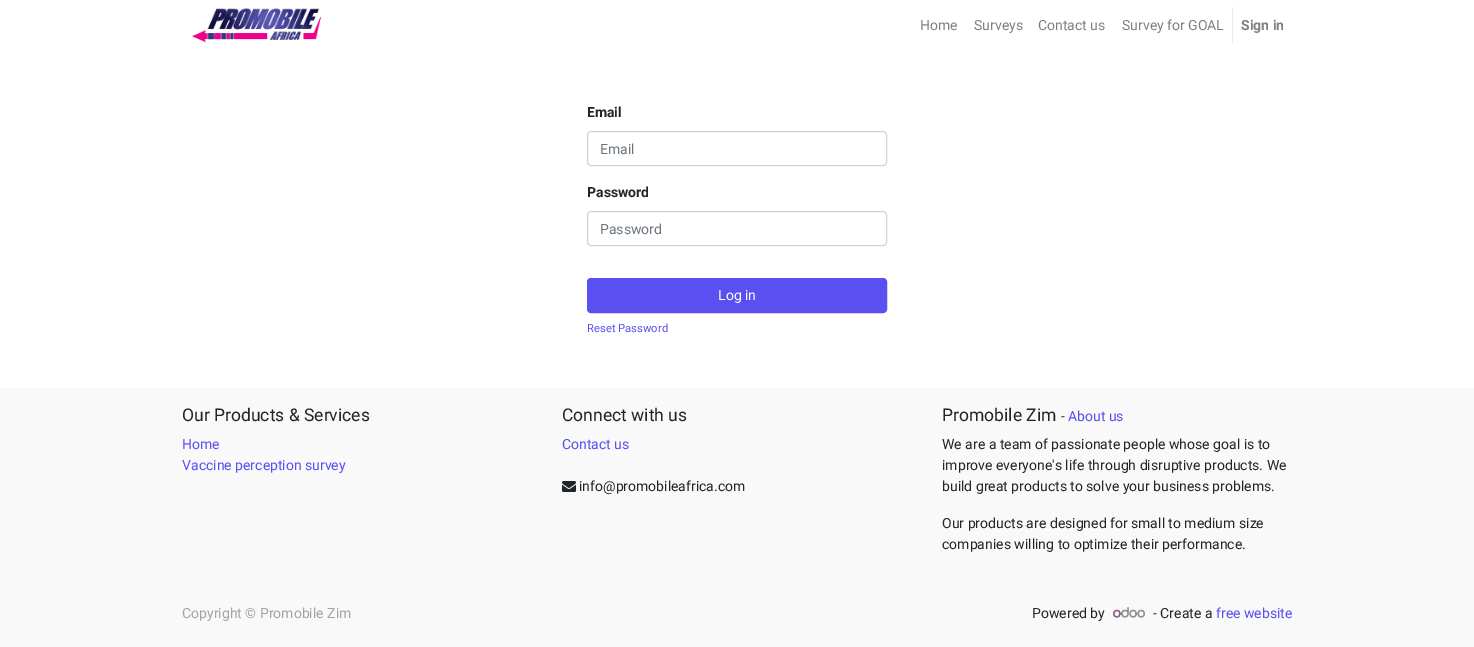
%!PS-Adobe-3.0
%%BoundingBox: 0 0 1474 647
%%LanguageLevel: 3
%%Pages: 1
%%EndComments
%%BeginProlog
/setink { dup -16 bitshift 255 div exch dup -8 bitshift 255 and 255 div exch 255 and 255 div setrgbcolor } def
/usefont { [ exch dup neg 0 0 3 -1 roll 0 0 ] selectfont } def
/rrect { 5 dict begin { /r /h /w /y /x } { exch def } forall
  x r add y moveto x w add y 2 copy h add r arct x w add y h add x 1 index r arct
  x y h add x y r arct x y 2 copy exch w add exch r arct closepath end } def
/drawimage { 5 dict begin { /h /w /y /x /name } { exch def } forall
  gsave x y translate w h scale
  w h 8 [w 0 0 h 0 0] name (r) file false 3 colorimage grestore end } def
%%EndProlog
%%BeginSetup
<< /PageSize [1474 647] >> setpagedevice
%%EndSetup
%%Page: 1 1
0 647 translate 1 -1 scale
4 setmiterlimit
16#FFFFFF setink
0 0 1474 647 rectfill
(img1.raw) 192 8 129 35 drawimage
/Roboto-Regular 14 usefont
16#808080 setink
[
    [(Home) 920 30]
    [(Surveys) 974 30]
    [(Contact us) 1038 30]
    [(Survey for GOAL) 1122 30]
] { aload pop moveto show } forall
16#E9ECEF setink
1232 7 1 37 rectfill
/Roboto-Bold 14 usefont
16#808080 setink
1241 30 moveto (Sign in) show
16#212529 setink
587 117 moveto (Email) show
16#CED4DA setink
587.5 131.5 299 34 3.5 rrect stroke
/Roboto-Regular 14 usefont
16#6C757D setink
600 154 moveto (Email) show
/Roboto-Bold 14 usefont
16#212529 setink
587 197 moveto (Password) show
16#CED4DA setink
587.5 211.5 299 34 3.5 rrect stroke
/Roboto-Regular 14 usefont
16#6C757D setink
600 234 moveto (Password) show
16#5A4FF1 setink
587.5 278.5 299 34 3.5 rrect gsave fill grestore
stroke
16#FFFFFF setink
718 300 moveto (Log in) show
/Roboto-Regular 11.25 usefont
16#5A4FF1 setink
587 332 moveto (Reset Password) show
16#F9F9F9 setink
0 388 1474 259 rectfill
/Roboto-Regular 17.5 usefont
16#212529 setink
182 421 moveto (Our Products & Services) show
/Roboto-Regular 14 usefont
16#5A4FF1 setink
182 449 moveto (Home) show
182 470 moveto (Vaccine perception survey) show
/Roboto-Regular 17.5 usefont
16#212529 setink
562 421 moveto (Connect with us) show
/Roboto-Regular 14 usefont
16#5A4FF1 setink
562 449 moveto (Contact us) show
(img2.raw) 562 481 14 11 drawimage
16#212529 setink
579 491 moveto (info@promobileafrica.com) show
/Roboto-Regular 17.5 usefont
942 421 moveto (Promobile Zim) show
/Roboto-Regular 14 usefont
1061 421 moveto (-) show
16#5A4FF1 setink
1068 421 moveto (About us) show
16#212529 setink
[
    [(We are a team of passionate people whose goal is to) 942 449]
    [(improve everyone's life through disruptive products. We) 942 470]
    [(build great products to solve your business problems.) 942 491]
    [(Our products are designed for small to medium size) 942 528]
    [(companies willing to optimize their performance.) 942 549]
] { aload pop moveto show } forall
16#A3A4A6 setink
182 618 moveto (Copyright © Promobile Zim) show
16#212529 setink
1032 618 moveto (Powered by) show
(img3.raw) 1113 607 32 11 drawimage
1153 618 moveto (- Create a) show
16#5A4FF1 setink
1216 618 moveto (free website) show
showpage
%%EOF
